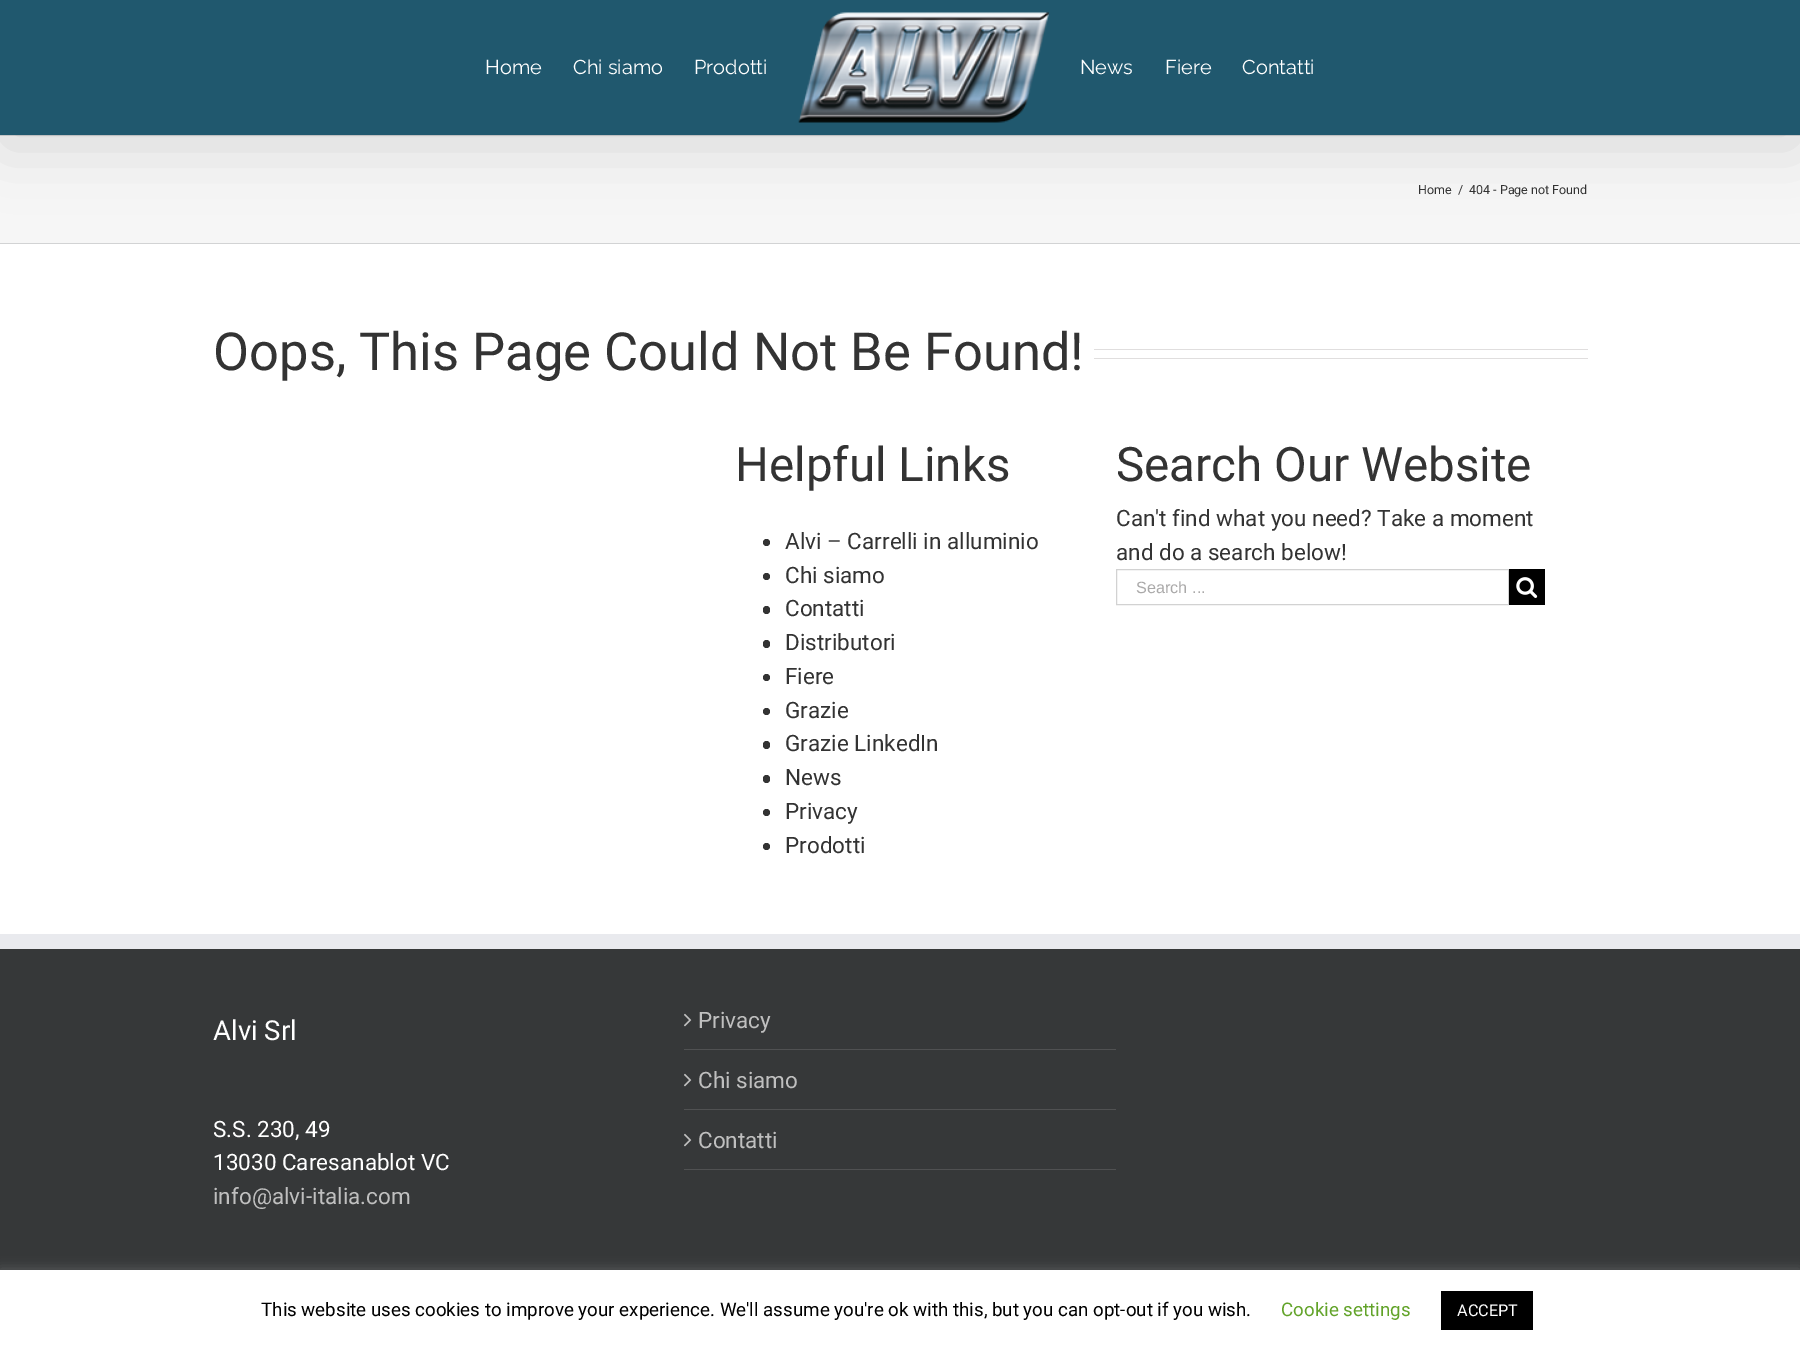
%!PS-Adobe-3.0
%%BoundingBox: 0 0 1800 1351
%%LanguageLevel: 3
%%Pages: 1
%%EndComments
%%BeginProlog
/setink { dup -16 bitshift 255 div exch dup -8 bitshift 255 and 255 div exch 255 and 255 div setrgbcolor } def
/usefont { [ exch dup neg 0 0 3 -1 roll 0 0 ] selectfont } def
/setalpha { dup .setfillconstantalpha .setstrokeconstantalpha } def
/disc { newpath 0 360 arc closepath } def
/rrect { 5 dict begin { /r /h /w /y /x } { exch def } forall
  x r add y moveto x w add y 2 copy h add r arct x w add y h add x 1 index r arct
  x y h add x y r arct x y 2 copy exch w add exch r arct closepath end } def
/softshadow { 12 dict begin { /a /b /q /h /w /y /x } { exch def } forall gsave /was 0 def
  9 -2 -9 { dup b mul 4 div /e exch def 1 sub .425 mul 2.718 exch exp 1 add a .99 .min exch div /now exch def
    1 1 now sub 1 was sub div sub setalpha /was now def
    w h .min e 2 mul add 0 gt { x e sub y e sub w e 2 mul add h e 2 mul add
      q e add b .6 mul add w h .min 2 div e add .min 0 .max rrect fill } if } for grestore end } def
/drawimage { 5 dict begin { /h /w /y /x /name } { exch def } forall
  gsave x y translate w h scale
  w h 8 [w 0 0 h 0 0] name (r) file false 3 colorimage grestore end } def
%%EndProlog
%%BeginSetup
<< /PageSize [1800 1351] /PageUsesTransparency true >> setpagedevice
%%EndSetup
%%Page: 1 1
0 .pushpdf14devicefilter
0 1351 translate 1 -1 scale
4 setmiterlimit
16#FFFFFF setink
0 0 1800 1351 rectfill
16#F6F6F6 setink
0 136 1800 107 rectfill
16#D2D3D4 setink
0 135 1800 1 rectfill
16#000000 setink
3 15 1795 130 0 31 0.14 softshadow
16#20586E setink
0 0 1800 135 rectfill
/Raleway-Thin 20 usefont
16#FFFFFF setink
[
    [(Home) 485 74]
    [(Chi siamo) 573 74]
    [(Prodotti) 694 74]
] { aload pop moveto show } forall
(img1.raw) 798 12 251 111 drawimage
[
    [(News) 1080 74]
    [(Fiere) 1165 74]
    [(Contatti) 1242 74]
] { aload pop moveto show } forall
16#D2D3D4 setink
0 243 1800 1 rectfill
/Roboto-Regular 12.5 usefont
16#333333 setink
[
    [(Home) 1418 194]
    [(/) 1458 194]
    [(404 - Page not Found) 1469 194]
] { aload pop moveto show } forall
/Roboto-Regular 52.5 usefont
213 370 moveto (Oops, This Page Could Not Be Found!) show
16#E0DEDE setink
1094 349 494 1 rectfill
1094 358 494 1 rectfill
/Roboto-Regular 47.5 usefont
16#333333 setink
735 481 moveto (Helpful Links) show
766.5 542.5 3.5 disc fill
/Roboto-Regular 22.5 usefont
785 549 moveto (Alvi – Carrelli in alluminio) show
766.5 576.5 3.5 disc fill
785 583 moveto (Chi siamo) show
763 606 7 8 3.5 rrect fill
785 616 moveto (Contatti) show
763 640 7 8 3.5 rrect fill
785 650 moveto (Distributori) show
766.5 677.5 3.5 disc fill
785 684 moveto (Fiere) show
766.5 711.5 3.5 disc fill
785 718 moveto (Grazie) show
763 741 7 8 3.5 rrect fill
785 751 moveto (Grazie LinkedIn) show
763 775 7 8 3.5 rrect fill
785 785 moveto (News) show
766.5 812.5 3.5 disc fill
785 819 moveto (Privacy) show
766.5 846.5 3.5 disc fill
785 853 moveto (Prodotti) show
/Roboto-Regular 47.5 usefont
1116 481 moveto (Search Our Website) show
/Roboto-Regular 22.5 usefont
1116 526 moveto (Can't find what you need? Take a moment) show
1116 560 moveto (and do a search below!) show
16#D2D2D2 setink
1116.5 569.5 392 35 rectstroke
/LiberationSans-Regular 16.25 usefont
16#AAA9A9 setink
1136 593 moveto (Search ...) show
16#000000 setink
1509 569 36 36 rectfill
(img2.raw) 1516 577 22 21 drawimage
16#363839 setink
0 949 1800 321 rectfill
16#E9EAEE setink
0 934 1800 15 rectfill
/Roboto-Regular 27.5 usefont
16#FFFFFF setink
213 1040 moveto (Alvi Srl) show
/Roboto-Regular 22.5 usefont
213 1137 moveto (S.S. 230, 49) show
213 1170 moveto (13030 Caresanablot VC) show
16#BFBFBF setink
213 1204 moveto (info@alvi-italia.com) show
16#505152 setink
684 1049 432 1 rectfill
(img3.raw) 684 1013 8 14 drawimage
16#BFBFBF setink
698 1028 moveto (Privacy) show
16#505152 setink
684 1109 432 1 rectfill
(img3.raw) 684 1073 8 14 drawimage
16#BFBFBF setink
698 1088 moveto (Chi siamo) show
16#505152 setink
684 1169 432 1 rectfill
(img3.raw) 684 1133 8 14 drawimage
16#BFBFBF setink
698 1148 moveto (Contatti) show
16#ACABAB setink
0 1269 1800 81 0 6 0.3 softshadow
16#FFFFFF setink
0 1270 1800 81 rectfill
/Roboto-Regular 18.75 usefont
16#000000 setink
261 1316 moveto (This website uses cookies to improve your experience. We'll assume you're ok with this, but you can opt-out if you wish.) show
16#62A329 setink
1281 1316 moveto (Cookie settings) show
16#000000 setink
1441 1291 92 39 rectfill
/Roboto-Regular 16.25 usefont
16#FFFFFF setink
1457 1316 moveto (ACCEPT) show
.poppdf14devicefilter showpage
%%EOF
